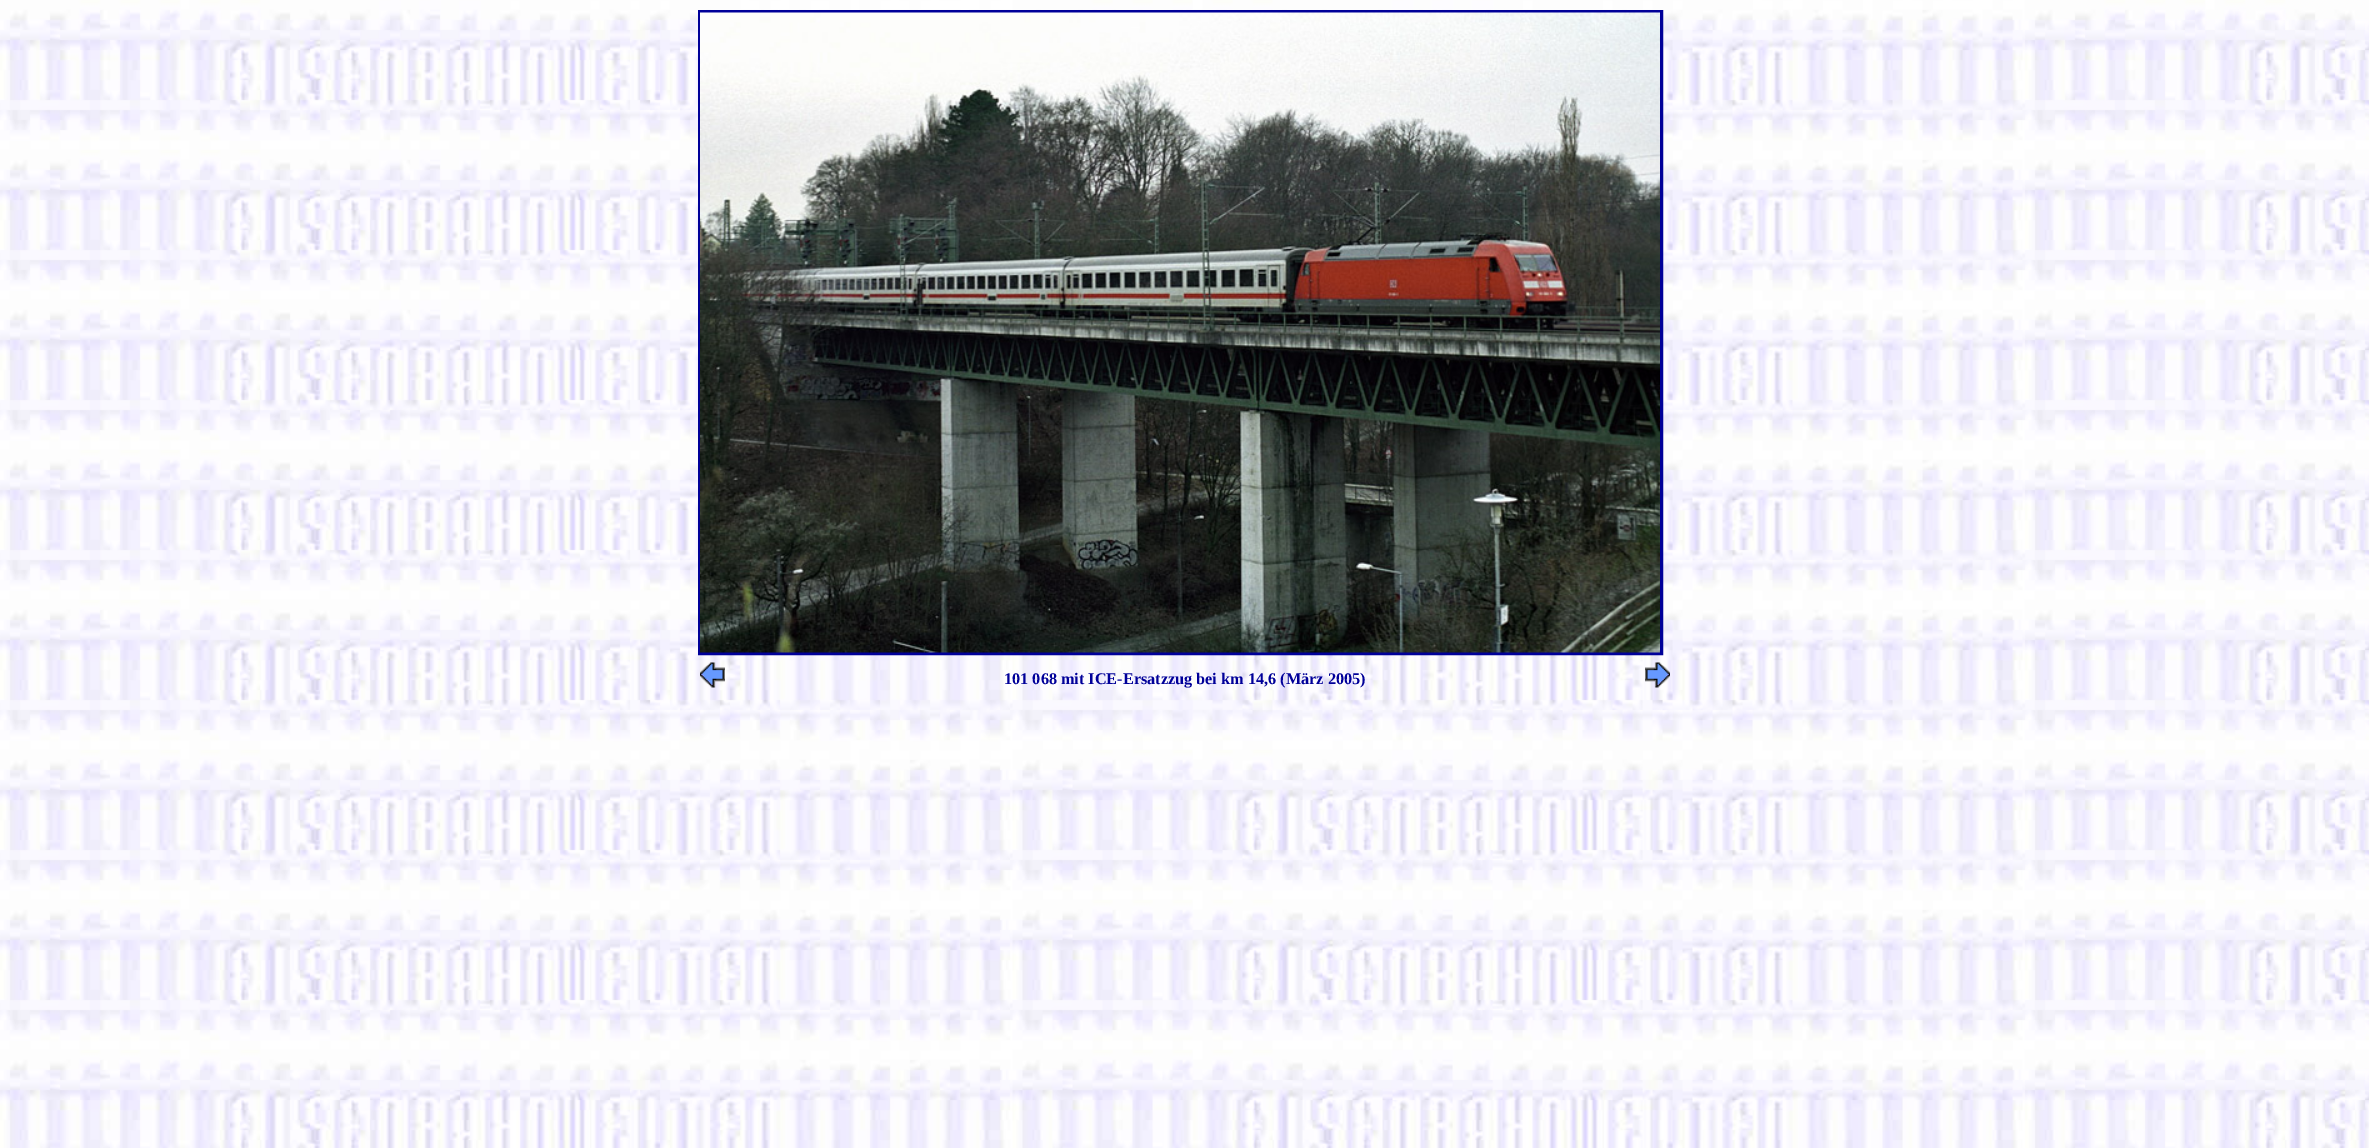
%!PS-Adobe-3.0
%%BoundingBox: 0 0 2369 1148
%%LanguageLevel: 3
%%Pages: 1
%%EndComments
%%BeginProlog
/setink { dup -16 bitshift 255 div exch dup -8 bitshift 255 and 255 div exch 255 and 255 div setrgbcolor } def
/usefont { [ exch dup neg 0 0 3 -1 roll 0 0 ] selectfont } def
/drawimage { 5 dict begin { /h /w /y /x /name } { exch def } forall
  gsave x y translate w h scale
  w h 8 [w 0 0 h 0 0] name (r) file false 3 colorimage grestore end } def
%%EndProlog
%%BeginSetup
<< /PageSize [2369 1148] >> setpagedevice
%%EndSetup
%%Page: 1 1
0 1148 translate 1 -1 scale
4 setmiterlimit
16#FFFFFF setink
0 0 2369 1148 rectfill
(img1.raw) 0 0 2369 1148 drawimage
16#000099 setink
3 setlinewidth
699.5 11.5 962 642 rectstroke
(img2.raw) 700 12 960 641 drawimage
(img3.raw) 700 662 25 26 drawimage
/LiberationSerif-Bold 16.25 usefont
1004 684 moveto (101 068 mit ICE-Ersatzzug bei km 14,6 \(März 2005\)) show
(img4.raw) 1645 662 25 26 drawimage
showpage
%%EOF
